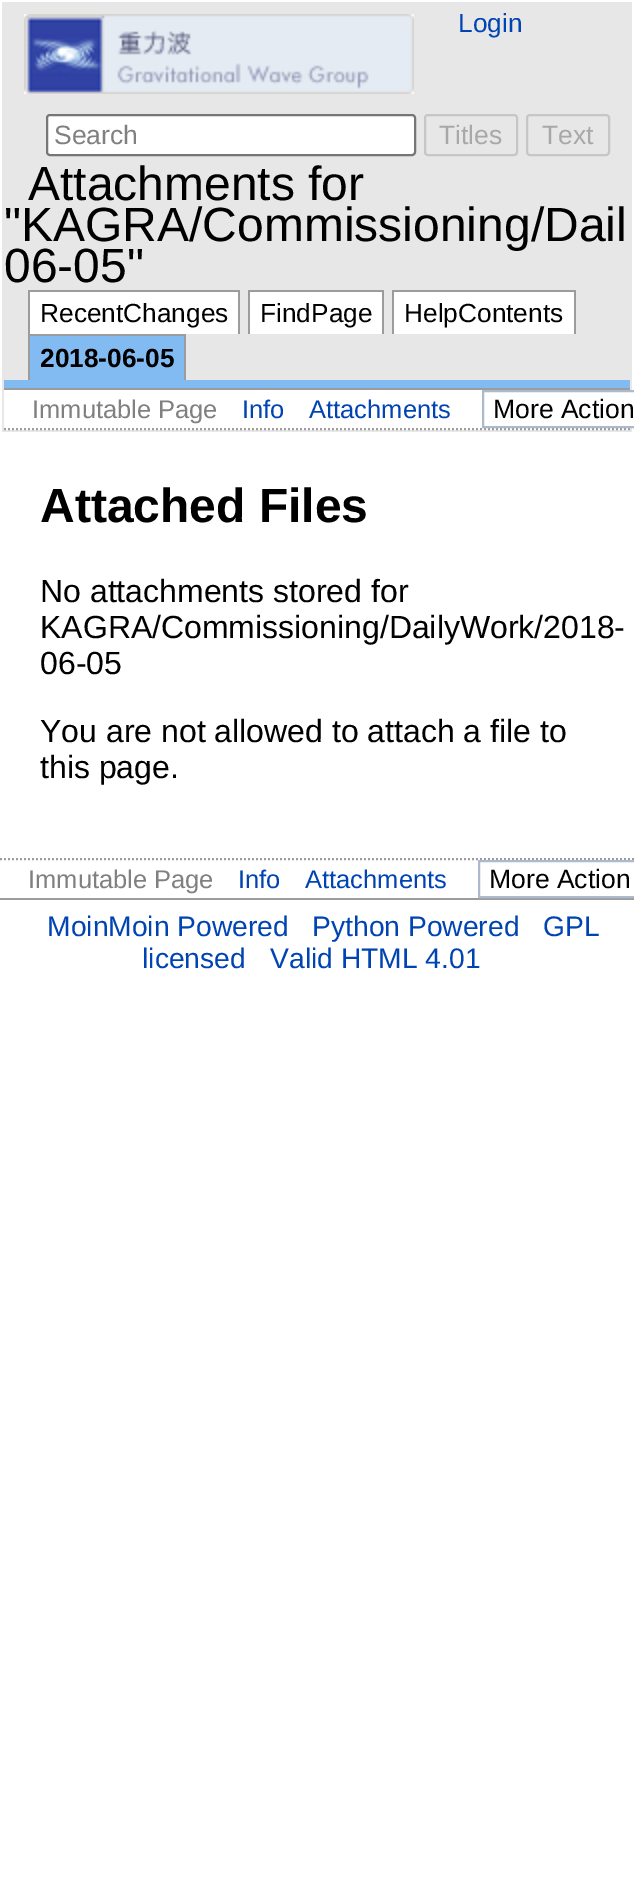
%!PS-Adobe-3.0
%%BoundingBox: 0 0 634 1894
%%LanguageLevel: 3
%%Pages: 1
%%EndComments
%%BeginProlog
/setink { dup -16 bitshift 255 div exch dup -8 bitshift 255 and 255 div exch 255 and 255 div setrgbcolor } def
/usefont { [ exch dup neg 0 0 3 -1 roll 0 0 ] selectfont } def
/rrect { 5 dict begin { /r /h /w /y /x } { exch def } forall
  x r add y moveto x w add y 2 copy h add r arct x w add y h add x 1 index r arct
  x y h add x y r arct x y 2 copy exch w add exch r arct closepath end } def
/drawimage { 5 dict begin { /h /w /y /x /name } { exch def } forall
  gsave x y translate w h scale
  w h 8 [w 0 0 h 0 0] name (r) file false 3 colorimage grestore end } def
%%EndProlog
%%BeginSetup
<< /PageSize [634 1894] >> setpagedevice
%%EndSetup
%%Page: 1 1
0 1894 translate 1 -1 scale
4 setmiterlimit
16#FFFFFF setink
0 0 634 1894 rectfill
16#E7E7E7 setink
2 2 630 430 rectfill
(img1.raw) 24 14 390 80 drawimage
/LiberationSans-Regular 26.25 usefont
16#0044B3 setink
458 32 moveto (Login) show
16#FFFFFF setink
47 115 368 40 3 rrect gsave fill grestore
16#767676 setink
2 setlinewidth
stroke
/LiberationSans-Regular 26.5 usefont
16#808080 setink
54 144 moveto (Search) show
16#C6C6C6 setink
425 115 92 40 3 rrect stroke
16#A8A8A8 setink
439 144 moveto (Titles) show
16#C6C6C6 setink
527 115 82 40 3 rrect stroke
16#A8A8A8 setink
542 144 moveto (Text) show
/LiberationSans-Regular 48 usefont
16#000000 setink
[
    [(Attachments for) 28 200]
    [("KAGRA/Commissioning/Dail) 4 241]
    [(06-05") 4 282]
] { aload pop moveto show } forall
[
    [30 292 208 42 16#FFFFFF]
    [28 290 212 2 16#9C9C9C]
    [238 290 2 44 16#9C9C9C]
    [28 290 2 44 16#9C9C9C]
] { aload pop setink rectfill } forall
/LiberationSans-Regular 26.25 usefont
16#000000 setink
40 322 moveto (RecentChanges) show
[
    [250 292 132 42 16#FFFFFF]
    [248 290 136 2 16#9C9C9C]
    [382 290 2 44 16#9C9C9C]
    [248 290 2 44 16#9C9C9C]
] { aload pop setink rectfill } forall
16#000000 setink
260 322 moveto (FindPage) show
[
    [394 292 180 42 16#FFFFFF]
    [392 290 184 2 16#9C9C9C]
    [574 290 2 44 16#9C9C9C]
    [392 290 2 44 16#9C9C9C]
] { aload pop setink rectfill } forall
16#000000 setink
404 322 moveto (HelpContents) show
[
    [30 336 154 44 16#81BBF2]
    [28 334 158 2 16#9C9C9C]
    [184 334 2 46 16#9C9C9C]
    [28 334 2 46 16#9C9C9C]
] { aload pop setink rectfill } forall
/LiberationSans-Bold 26.25 usefont
16#000000 setink
40 367 moveto (2018-06-05) show
[
    [4 380 626 8 16#81BBF2]
    [4 388 626 2 16#9C9C9C]
    [4 390 624 40 16#FFFFFF]
] { aload pop setink rectfill } forall
16#9C9C9C setink
[2 2] 0 setdash
4 429 moveto 630 429 lineto stroke
/LiberationSans-Regular 25.5 usefont
16#808080 setink
32 418 moveto (Immutable Page) show
16#0044B3 setink
242 418 moveto (Info) show
309 418 moveto (Attachments) show
16#FFFFFF setink
628 392 4 34 rectfill
16#ADB9CC setink
[] 0 setdash
483 391 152 36 rectstroke
/LiberationSans-Regular 26.5 usefont
16#000000 setink
493 418 moveto (More Action) show
/LiberationSans-Bold 48 usefont
40 522 moveto (Attached Files) show
/LiberationSans-Regular 32 usefont
[
    [(No attachments stored for) 40 602]
    [(KAGRA/Commissioning/DailyWork/2018-) 40 638]
    [(06-05) 40 674]
    [(You are not allowed to attach a file to) 40 742]
    [(this page.) 40 778]
] { aload pop moveto show } forall
16#9C9C9C setink
[2 2] 0 setdash
0 859 moveto 634 859 lineto stroke
0 898 634 2 rectfill
/LiberationSans-Regular 25.5 usefont
16#808080 setink
28 888 moveto (Immutable Page) show
16#0044B3 setink
238 888 moveto (Info) show
305 888 moveto (Attachments) show
16#ADB9CC setink
[] 0 setdash
479 861 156 36 rectstroke
/LiberationSans-Regular 26.5 usefont
16#000000 setink
489 888 moveto (More Action) show
/LiberationSans-Regular 28.25 usefont
16#0044B3 setink
[
    [(MoinMoin Powered) 47 936]
    [(Python Powered) 312 936]
    [(GPL) 543 936]
    [(licensed) 142 968]
    [(Valid HTML 4.01) 270 968]
] { aload pop moveto show } forall
showpage
%%EOF
